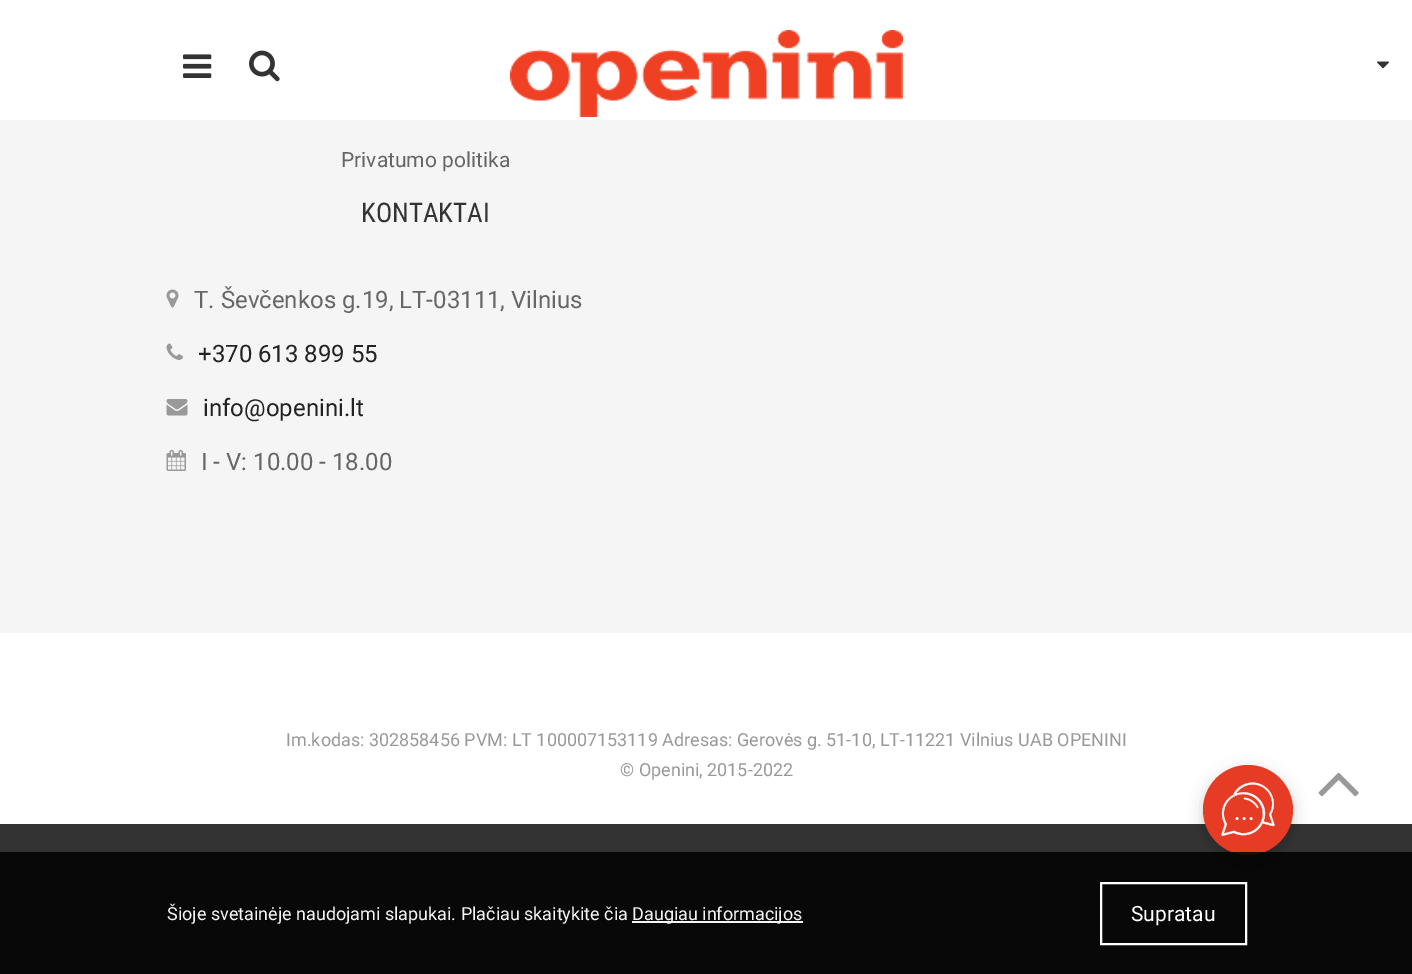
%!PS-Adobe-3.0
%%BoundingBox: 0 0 1412 974
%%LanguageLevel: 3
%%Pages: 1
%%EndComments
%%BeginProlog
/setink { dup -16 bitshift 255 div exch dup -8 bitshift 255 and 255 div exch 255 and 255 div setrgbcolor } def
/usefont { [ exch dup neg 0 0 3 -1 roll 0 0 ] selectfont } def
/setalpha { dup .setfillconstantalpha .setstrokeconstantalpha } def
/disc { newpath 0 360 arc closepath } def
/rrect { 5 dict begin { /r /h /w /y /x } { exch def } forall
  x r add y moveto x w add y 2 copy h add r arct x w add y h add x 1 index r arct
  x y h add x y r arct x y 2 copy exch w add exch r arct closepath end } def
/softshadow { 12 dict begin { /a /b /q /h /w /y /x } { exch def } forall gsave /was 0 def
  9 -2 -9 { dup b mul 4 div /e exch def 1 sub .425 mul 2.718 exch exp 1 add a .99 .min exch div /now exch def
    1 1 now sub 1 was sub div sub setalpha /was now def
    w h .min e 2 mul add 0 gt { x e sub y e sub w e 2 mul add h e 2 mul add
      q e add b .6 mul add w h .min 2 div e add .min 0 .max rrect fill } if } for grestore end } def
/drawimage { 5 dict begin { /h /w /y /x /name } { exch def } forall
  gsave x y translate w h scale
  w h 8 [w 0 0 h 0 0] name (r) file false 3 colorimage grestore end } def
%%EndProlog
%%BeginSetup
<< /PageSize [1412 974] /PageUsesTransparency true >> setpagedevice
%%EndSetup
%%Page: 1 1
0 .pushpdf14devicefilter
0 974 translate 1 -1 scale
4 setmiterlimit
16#F5F5F5 setink
0 0 1412 974 rectfill
16#FFFFFF setink
0 0 1412 120 rectfill
(img1.raw) 183 54 29 24 drawimage
(img2.raw) 249 50 31 32 drawimage
(img3.raw) 510 30 393 87 drawimage
(img4.raw) 1377 61 12 8 drawimage
/Roboto-Regular 21 usefont
16#666666 setink
341 167 moveto (Privatumo politika) show
/RobotoCondensed-Regular 27 usefont
16#333333 setink
361 222 moveto (KONTAKTAI) show
(img5.raw) 166 289 13 19 drawimage
/Roboto-Regular 24 usefont
16#666666 setink
194 308 moveto (T. Ševčenkos g.19, LT-03111, Vilnius) show
(img6.raw) 166 343 17 17 drawimage
16#222222 setink
198 362 moveto (+370 613 899 55) show
(img7.raw) 166 399 22 17 drawimage
203 416 moveto (info@openini.lt) show
(img8.raw) 166 450 20 21 drawimage
16#666666 setink
201 470 moveto (I - V: 10.00 - 18.00) show
16#FFFFFF setink
0 633 1412 191 rectfill
/Roboto-Regular 18 usefont
16#999999 setink
286 746 moveto (Im.kodas: 302858456 PVM: LT 100007153119 Adresas: Gerovės g. 51-10, LT-11221 Vilnius UAB OPENINI) show
620 776 moveto (© Openini, 2015-2022) show
16#333333 setink
0 824 1412 150 rectfill
16#000000 setink
1203 771 90 90 45 7.5 0.2 softshadow
16#E63B24 setink
1248 810 45 disc fill
(img9.raw) 1221 782 54 54 drawimage
(img10.raw) 1318 772 41 25 drawimage
0.85 setalpha
16#000000 setink
0 852 1412 122 rectfill
1 setalpha
16#F5F5F5 setink
167 920 moveto (Šioje svetainėje naudojami slapukai. Plačiau skaitykite čia) show
632 921 171 2 rectfill
632 920 moveto (Daugiau informacijos) show
16#FFFFFF setink
2 setlinewidth
1101 883 145 61 rectstroke
/Roboto-Regular 21 usefont
1131 921 moveto (Supratau) show
.poppdf14devicefilter showpage
%%EOF
